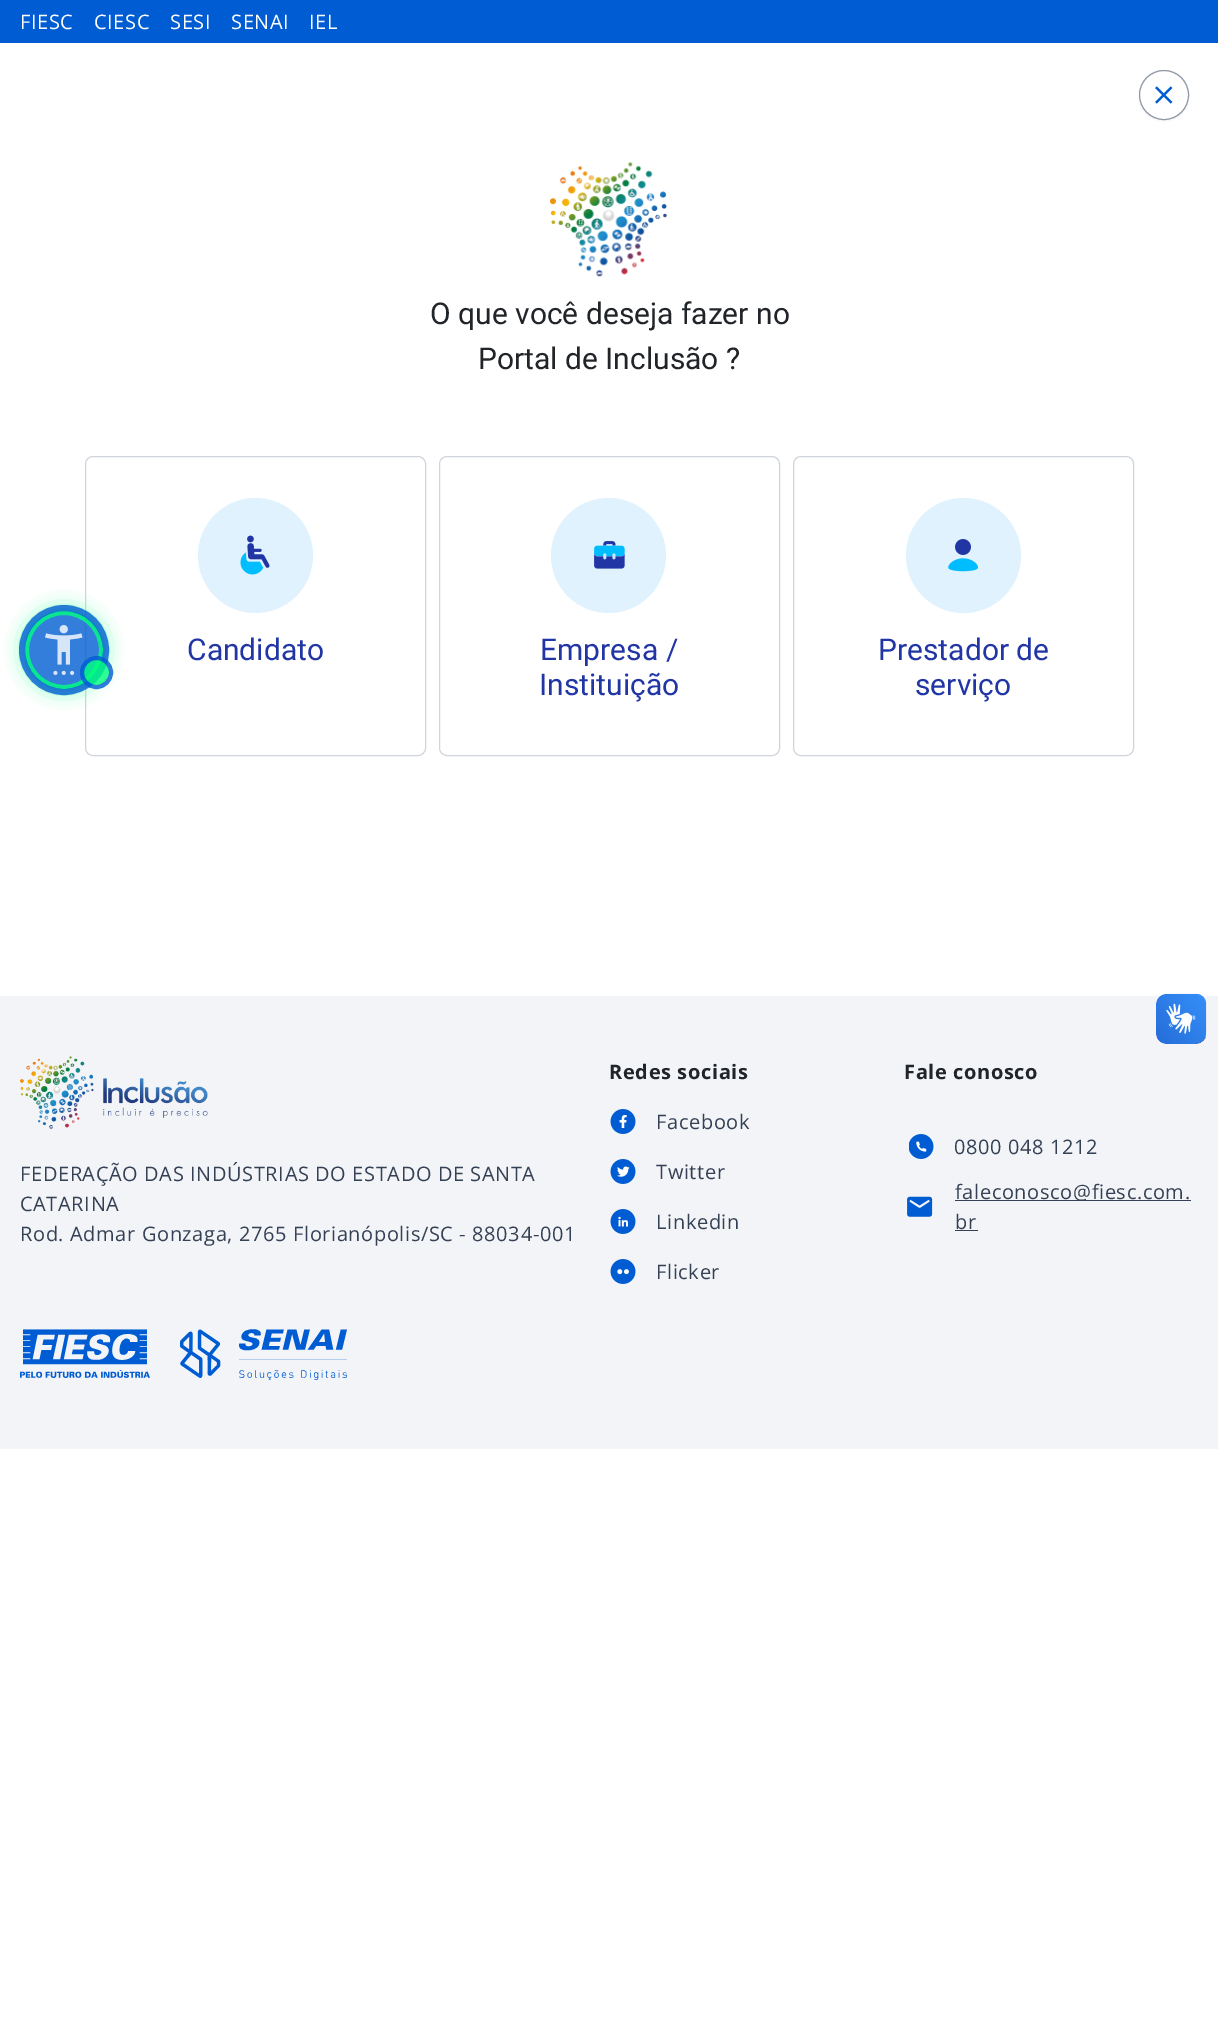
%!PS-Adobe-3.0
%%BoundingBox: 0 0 1218 2037
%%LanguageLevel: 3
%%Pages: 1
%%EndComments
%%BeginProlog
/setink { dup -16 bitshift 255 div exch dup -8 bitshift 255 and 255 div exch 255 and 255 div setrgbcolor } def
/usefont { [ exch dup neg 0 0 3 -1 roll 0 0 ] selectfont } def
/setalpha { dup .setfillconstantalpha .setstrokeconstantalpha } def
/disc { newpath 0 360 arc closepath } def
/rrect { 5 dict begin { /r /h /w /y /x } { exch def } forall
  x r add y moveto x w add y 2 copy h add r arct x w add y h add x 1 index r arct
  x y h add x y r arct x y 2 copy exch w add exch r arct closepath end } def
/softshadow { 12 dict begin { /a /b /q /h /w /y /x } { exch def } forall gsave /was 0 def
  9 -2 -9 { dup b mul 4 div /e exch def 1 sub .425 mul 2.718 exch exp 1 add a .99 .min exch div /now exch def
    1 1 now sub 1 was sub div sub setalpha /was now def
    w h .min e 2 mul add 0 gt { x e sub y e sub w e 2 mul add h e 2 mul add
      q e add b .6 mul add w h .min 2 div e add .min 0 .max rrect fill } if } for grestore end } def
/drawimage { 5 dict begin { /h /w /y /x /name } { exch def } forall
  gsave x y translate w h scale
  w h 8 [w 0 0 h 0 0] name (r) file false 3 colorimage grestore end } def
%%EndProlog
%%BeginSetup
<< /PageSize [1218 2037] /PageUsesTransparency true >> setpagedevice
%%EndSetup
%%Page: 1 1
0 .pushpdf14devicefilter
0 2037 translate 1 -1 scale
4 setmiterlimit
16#FFFFFF setink
0 0 1218 2037 rectfill
16#005CD2 setink
0 0 1218 43 rectfill
/OpenSans-Regular 20 usefont
16#FFFFFF setink
20 29 moveto 0.62 0 (FIESC) ashow
94 29 moveto 0.62 0 (CIESC) ashow
170 29 moveto 0.62 0 (SESI) ashow
231 29 moveto 0.62 0 (SENAI) ashow
309 29 moveto 0.62 0 (IEL) ashow
16#D0D5DD setink
85.5 456.5 340 299 7.5 rrect stroke
gsave
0 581 moveto 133 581 lineto 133 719 lineto 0 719 lineto closepath 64 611 moveto 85.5 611 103 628.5 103 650 curveto 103 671.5 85.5 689 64 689 curveto 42.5 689 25 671.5 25 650 curveto 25 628.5 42.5 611 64 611 curveto closepath eoclip newpath
16#00FF7F setink
25 611 78 78 39 9.5 0.8 softshadow
grestore
0.8 setalpha
16#005CD2 setink
64 650 39 disc fill
16#00FF7F setink
4 setlinewidth
64 650 37 disc stroke
16#005CD2 setink
6 setlinewidth
64 650 42 disc stroke
1 setalpha
(img1.raw) 45 625 38 50 drawimage
0.8 setalpha
16#00FF7F setink
96.5 672.5 12.5 disc fill
16#005CD2 setink
4 setlinewidth
96.5 672.5 14.5 disc stroke
1 setalpha
16#101828 setink
1139 71 50 50 25 1 0.05 softshadow
16#FFFFFF setink
1164 95 24.5 disc gsave fill grestore
16#8E97A4 setink
1 setlinewidth
stroke
(img2.raw) 1155 86 18 18 drawimage
(img3.raw) 550 162 118 115 drawimage
/Roboto-Regular 30 usefont
16#212529 setink
430 324 moveto (O que você deseja fazer no) show
478 369 moveto (Portal de Inclusão ?) show
16#E0F2FE setink
255.5 555.5 57.5 disc fill
(img4.raw) 240 535 30 40 drawimage
16#2136A4 setink
187 660 moveto (Candidato) show
16#D0D5DD setink
439.5 456.5 340 299 7.5 rrect stroke
16#E0F2FE setink
608.5 555.5 57.5 disc fill
(img5.raw) 594 541 31 28 drawimage
16#2136A4 setink
540 660 moveto (Empresa /) show
539 695 moveto (Instituição) show
16#D0D5DD setink
793.5 456.5 340 299 7.5 rrect stroke
16#E0F2FE setink
963.5 555.5 57.5 disc fill
(img6.raw) 948 539 30 33 drawimage
16#2136A4 setink
878 660 moveto (Prestador de) show
915 695 moveto (serviço) show
16#F2F4F7 setink
0 996 1218 453 rectfill
(img7.raw) 1156 993 51 51 drawimage
(img8.raw) 1156 994 50 50 drawimage
(img9.raw) 20 1056 188 73 drawimage
/OpenSans-Regular 20 usefont
16#344054 setink
20 1181 moveto 0.62 0 (FEDERAÇÃO DAS INDÚSTRIAS DO ESTADO DE SANTA) ashow
20 1211 moveto 0.62 0 (CATARINA) ashow
20 1241 moveto 0.62 0 (Rod. Admar Gonzaga, 2765 Florianópolis/SC - 88034-001) ashow
(img10.raw) 20 1329 130 49 drawimage
(img11.raw) 180 1329 167 51 drawimage
/OpenSans-Bold 20 usefont
16#212529 setink
609 1079 moveto 0.62 0 (Redes sociais) ashow
(img12.raw) 610 1109 26 25 drawimage
/OpenSans-Regular 20 usefont
16#344054 setink
656 1129 moveto 0.62 0 (Facebook) ashow
(img13.raw) 610 1159 26 25 drawimage
656 1179 moveto 0.62 0 (Twitter) ashow
(img14.raw) 610 1209 26 25 drawimage
656 1229 moveto 0.62 0 (Linkedin) ashow
(img15.raw) 610 1259 26 25 drawimage
656 1279 moveto 0.62 0 (Flicker) ashow
/OpenSans-Bold 20 usefont
16#212529 setink
904 1079 moveto 0.62 0 (Fale conosco) ashow
(img16.raw) 909 1134 25 25 drawimage
/OpenSans-Regular 20 usefont
16#344054 setink
954 1154 moveto 0.62 0 (0800 048 1212) ashow
(img17.raw) 907 1196 26 21 drawimage
955 1200 236 1 rectfill
955 1199 moveto 0.62 0 (faleconosco@fiesc.com.) ashow
955 1229 moveto 0.62 0 (br) ashow
955 1230 23 1 rectfill
.poppdf14devicefilter showpage
%%EOF
